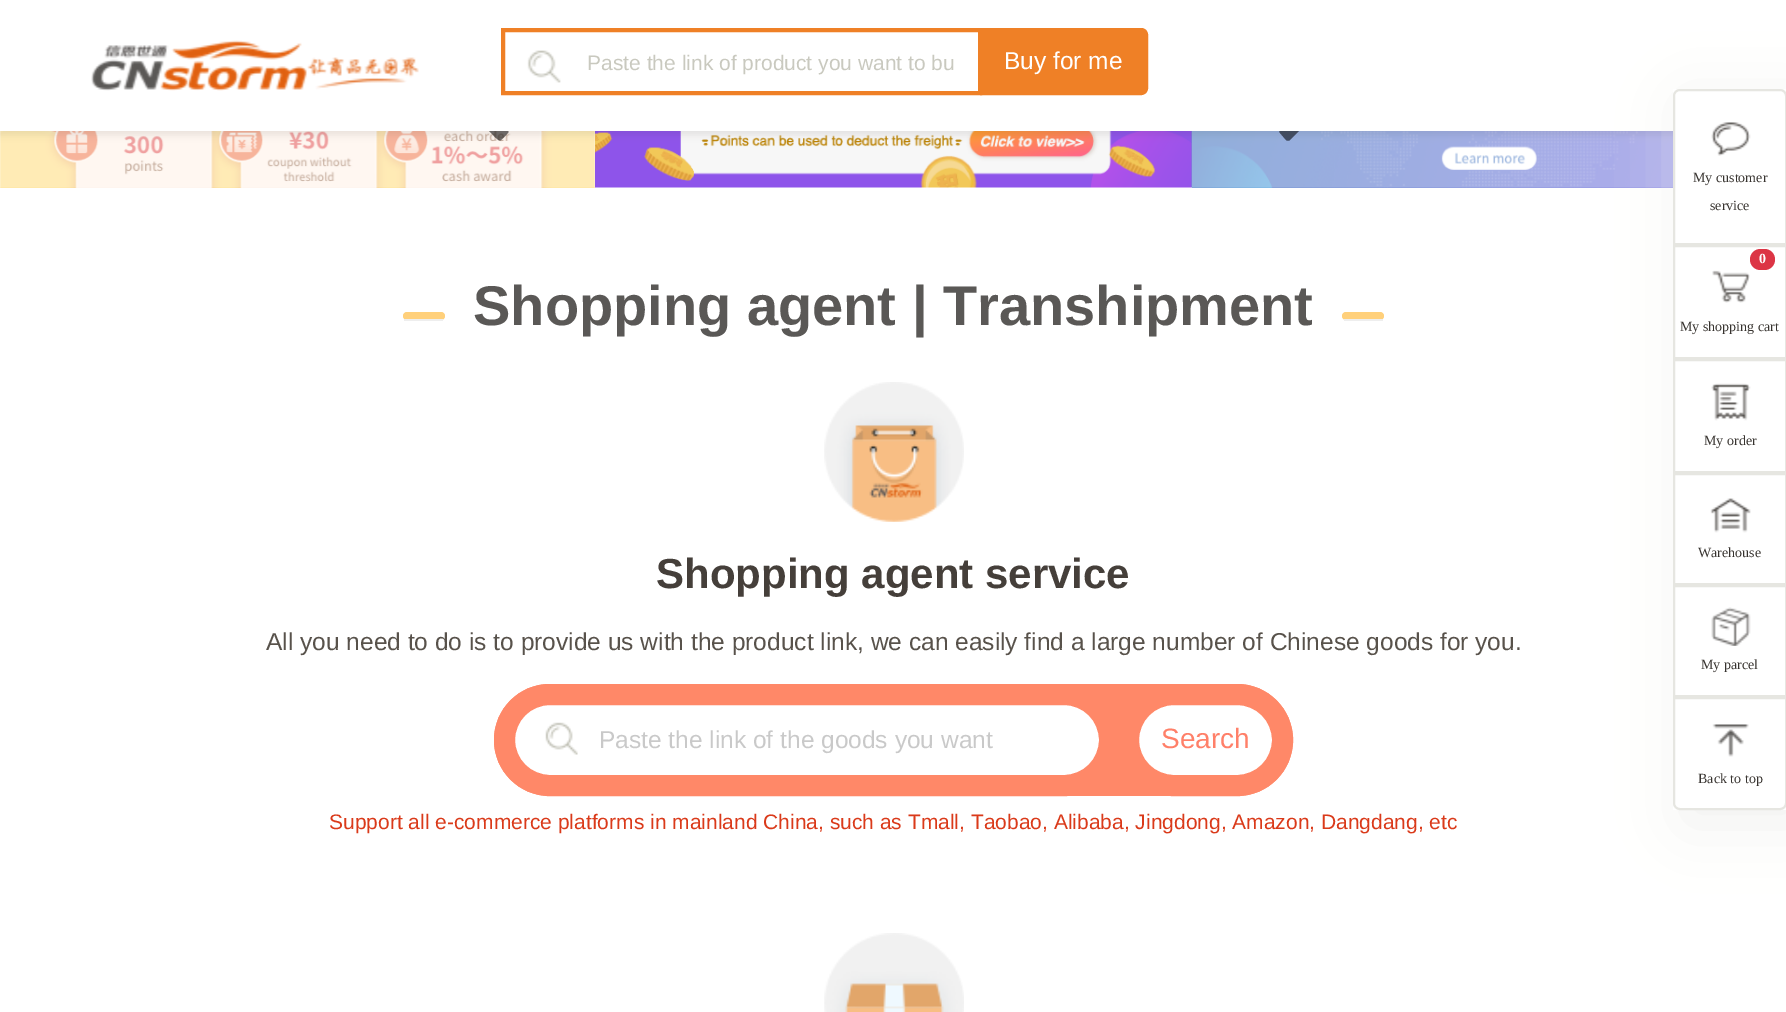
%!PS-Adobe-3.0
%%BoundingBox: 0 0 1786 1012
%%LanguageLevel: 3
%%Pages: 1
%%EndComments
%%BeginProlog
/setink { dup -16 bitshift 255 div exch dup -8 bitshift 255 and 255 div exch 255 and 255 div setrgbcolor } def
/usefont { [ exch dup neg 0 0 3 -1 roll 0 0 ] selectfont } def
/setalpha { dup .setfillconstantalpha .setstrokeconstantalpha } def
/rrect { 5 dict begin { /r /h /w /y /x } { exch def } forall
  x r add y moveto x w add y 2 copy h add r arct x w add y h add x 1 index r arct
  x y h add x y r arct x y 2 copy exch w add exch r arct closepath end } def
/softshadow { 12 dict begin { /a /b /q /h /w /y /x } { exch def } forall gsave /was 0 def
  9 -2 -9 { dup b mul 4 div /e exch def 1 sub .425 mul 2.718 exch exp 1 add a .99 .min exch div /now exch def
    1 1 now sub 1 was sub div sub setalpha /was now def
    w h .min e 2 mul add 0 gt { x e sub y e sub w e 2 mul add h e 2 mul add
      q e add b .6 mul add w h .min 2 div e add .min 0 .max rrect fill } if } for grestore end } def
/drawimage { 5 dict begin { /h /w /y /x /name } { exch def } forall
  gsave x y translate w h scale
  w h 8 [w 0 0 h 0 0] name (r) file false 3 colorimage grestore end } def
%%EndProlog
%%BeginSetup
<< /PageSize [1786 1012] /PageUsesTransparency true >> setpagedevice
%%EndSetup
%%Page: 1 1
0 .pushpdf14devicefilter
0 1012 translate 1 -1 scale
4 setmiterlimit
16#FFFFFF setink
0 0 1786 1012 rectfill
(img3.raw) 0 131 596 57 drawimage
0.56 setalpha
16#000000 setink
508 88 moveto 510 86 505 82 503 80 curveto 498 75 498 78 493 83 curveto 468 108 lineto 468 110 lineto 493 135 lineto 501 143 499 142 507 134 curveto 510 131 508 130 504 126 curveto 487 109 lineto closepath fill
1 setalpha
(img4.raw) 595 131 597 57 drawimage
(img5.raw) 1191 131 482 57 drawimage
0.56 setalpha
1319 111 moveto 1320 110 1320 108 1319 107 curveto 1290 78 lineto 1289 77 1287 77 1286 78 curveto 1280 85 lineto 1279 86 1279 87 1280 88 curveto 1301 109 lineto 1280 130 lineto 1279 131 1279 132 1280 133 curveto 1286 140 lineto 1287 141 1289 141 1290 140 curveto closepath fill
1 setalpha
16#37332F setink
0 4 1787 131 0 3.5 0.1 softshadow
16#FFFFFF setink
0 0 1786 131 rectfill
(img1.raw) 91 40 328 51 drawimage
16#EF8026 setink
982 30 moveto 1141 30 lineto 1144 30 1146 32 1146 35 curveto 1146 88 lineto 1146 91 1144 93 1141 93 curveto 982 93 lineto closepath gsave fill grestore
4 setlinewidth
stroke
503 30 477 63 rectstroke
(img2.raw) 527 50 34 33 drawimage
/LiberationSans-Regular 21 usefont
16#C9C9BF setink
587 70 moveto (Paste the link of product you want to bu) show
/LiberationSans-Regular 24.5 usefont
16#FFFFFF setink
1004 69 moveto (Buy for me) show
16#FFD07B setink
403 312 42 8 4 rrect fill
16#EEEEEE setink
404 319 39 2 rectfill
/LiberationSans-Bold 56 usefont
16#5A5856 setink
473 325 moveto (Shopping agent | Transhipment) show
16#FFD07B setink
1342 312 42 8 4 rrect fill
16#EEEEEE setink
1344 319 39 2 rectfill
(img6.raw) 824 382 140 140 drawimage
/LiberationSans-Bold 42 usefont
16#453F3A setink
656 588 moveto (Shopping agent service) show
/LiberationSans-Regular 24.5 usefont
16#58524B setink
266 650 moveto (All you need to do is to provide us with the product link, we can easily find a large number of Chinese goods for you.) show
16#FF8868 setink
494 684 799 112 56 rrect fill
16#FFFFFF setink
504.5 694.5 605 91 45.5 rrect gsave fill grestore
16#FF8868 setink
21 setlinewidth
stroke
(img7.raw) 545 722 33 33 drawimage
16#C9C9C9 setink
599 748 moveto (Paste the link of the goods you want) show
16#FFFFFF setink
1128.5 694.5 154 91 45.5 rrect gsave fill grestore
16#FF8868 setink
stroke
/LiberationSans-Regular 28 usefont
16#FF8069 setink
1161 748 moveto (Search) show
/LiberationSans-Regular 21 usefont
16#DA3A1A setink
329 829 moveto (Support all e-commerce platforms in mainland China, such as Tmall, Taobao, Alibaba, Jingdong, Amazon, Dangdang, etc) show
(img8.raw) 824 933 140 79 drawimage
gsave
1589 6 moveto 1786 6 lineto 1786 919 lineto 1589 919 lineto closepath 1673 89 moveto 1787 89 lineto 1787 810 lineto 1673 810 lineto closepath eoclip newpath
16#ECECE7 setink
1685 102 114 721 0 31.5 0.7 softshadow
grestore
16#FFFFFF setink
1680 90 moveto 1780 90 lineto 1783.5 90 1786 92.5 1786 96 curveto 1786 244 lineto 1674 244 lineto 1674 96 lineto 1674 92.5 1676.5 90 1680 90 curveto closepath gsave fill grestore
16#E6E6E1 setink
2 setlinewidth
stroke
(img9.raw) 1711 122 40 34 drawimage
/LiberationSerif-Regular 14 usefont
16#37332F setink
1693 182 moveto (My customer) show
1710 210 moveto (service) show
16#E6E6E1 setink
1674 246 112 112 rectstroke
16#DC3545 setink
1750 249 25 21 10.5 rrect fill
/LiberationSerif-Bold 14 usefont
16#FFFFFF setink
1759 263 moveto (0) show
(img10.raw) 1712 270 38 33 drawimage
/LiberationSerif-Regular 14 usefont
16#37332F setink
1680 331 moveto (My shopping cart) show
16#E6E6E1 setink
1674 360 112 112 rectstroke
(img11.raw) 1711 383 40 38 drawimage
16#37332F setink
1704 445 moveto (My order) show
16#E6E6E1 setink
1674 474 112 110 rectstroke
(img12.raw) 1710 498 41 35 drawimage
16#37332F setink
1698 557 moveto (Warehouse) show
16#E6E6E1 setink
1674 586 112 110 rectstroke
(img13.raw) 1711 607 40 39 drawimage
16#37332F setink
1701 669 moveto (My parcel) show
16#E6E6E1 setink
1674 698 moveto 1786 698 lineto 1786 803 lineto 1786 806.5 1783.5 809 1780 809 curveto 1680 809 lineto 1676.5 809 1674 806.5 1674 803 curveto closepath stroke
(img14.raw) 1712 724 37 33 drawimage
16#37332F setink
1698 783 moveto (Back to top) show
.poppdf14devicefilter showpage
%%EOF
